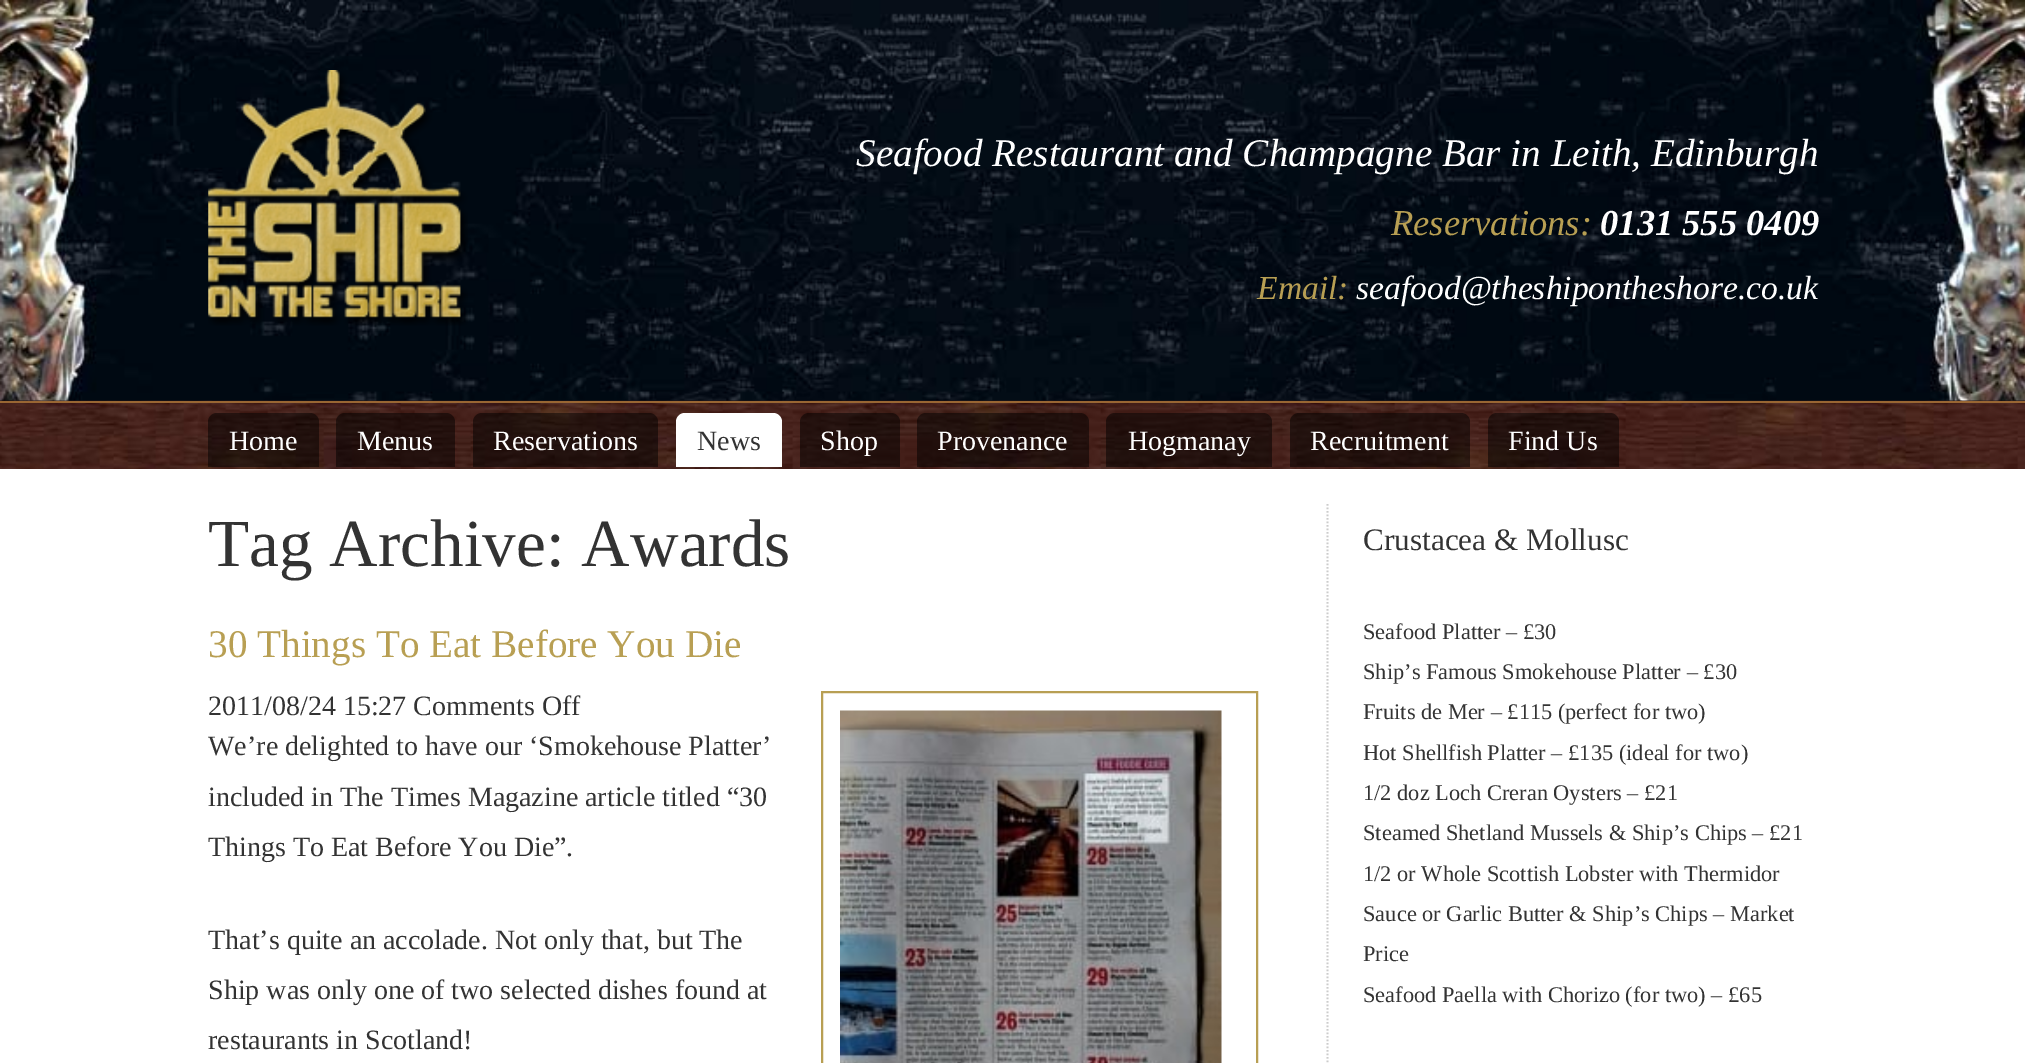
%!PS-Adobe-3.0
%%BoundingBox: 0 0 2025 1063
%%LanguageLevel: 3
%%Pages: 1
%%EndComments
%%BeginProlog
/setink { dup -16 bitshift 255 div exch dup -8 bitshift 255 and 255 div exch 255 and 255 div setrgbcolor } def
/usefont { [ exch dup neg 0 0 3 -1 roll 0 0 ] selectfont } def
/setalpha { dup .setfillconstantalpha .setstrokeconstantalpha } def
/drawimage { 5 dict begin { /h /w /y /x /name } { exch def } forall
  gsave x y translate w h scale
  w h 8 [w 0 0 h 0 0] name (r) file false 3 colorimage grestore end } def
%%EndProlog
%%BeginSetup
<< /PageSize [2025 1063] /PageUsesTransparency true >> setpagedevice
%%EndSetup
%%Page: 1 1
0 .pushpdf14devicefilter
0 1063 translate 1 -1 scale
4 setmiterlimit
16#FFFFFF setink
0 0 2025 1063 rectfill
(img1.raw) 0 0 2025 401 drawimage
(img2.raw) 208 70 260 256 drawimage
/LiberationSerif-Italic 39.2 usefont
856 166 moveto (Seafood Restaurant and Champagne Bar in Leith, Edinburgh) show
/LiberationSerif-Italic 36.5 usefont
16#B89F53 setink
1391 235 moveto (Reservations:) show
/LiberationSerif-BoldItalic 36.5 usefont
16#FFFFFF setink
1600 235 moveto (0131 555 0409) show
/LiberationSerif-Italic 33.6 usefont
16#B89F53 setink
1257 299 moveto (Email:) show
16#FFFFFF setink
1356 299 moveto (seafood@theshipontheshore.co.uk) show
(img3.raw) 0 400 2025 69 drawimage
16#996633 setink
0 401 2025 2 rectfill
0.5 setalpha
16#000000 setink
217 413 moveto 310 413 lineto 315 413 319 417 319 422 curveto 319 467 lineto 208 467 lineto 208 422 lineto 208 417 212 413 217 413 curveto closepath fill
/LiberationSerif-Regular 28 usefont
1 setalpha
16#FFFFFF setink
229 450 moveto (Home) show
0.5 setalpha
16#000000 setink
345 413 moveto 446 413 lineto 451 413 455 417 455 422 curveto 455 467 lineto 336 467 lineto 336 422 lineto 336 417 340 413 345 413 curveto closepath fill
1 setalpha
16#FFFFFF setink
357 450 moveto (Menus) show
0.5 setalpha
16#000000 setink
482 413 moveto 649 413 lineto 654 413 658 417 658 422 curveto 658 467 lineto 473 467 lineto 473 422 lineto 473 417 477 413 482 413 curveto closepath fill
1 setalpha
16#FFFFFF setink
493 450 moveto (Reservations) show
685 413 moveto 773 413 lineto 778 413 782 417 782 422 curveto 782 467 lineto 676 467 lineto 676 422 lineto 676 417 680 413 685 413 curveto closepath fill
16#333333 setink
697 450 moveto (News) show
0.5 setalpha
16#000000 setink
809 413 moveto 891 413 lineto 896 413 900 417 900 422 curveto 900 467 lineto 800 467 lineto 800 422 lineto 800 417 804 413 809 413 curveto closepath fill
1 setalpha
16#FFFFFF setink
820 450 moveto (Shop) show
0.5 setalpha
16#000000 setink
926 413 moveto 1080 413 lineto 1085 413 1089 417 1089 422 curveto 1089 467 lineto 917 467 lineto 917 422 lineto 917 417 921 413 926 413 curveto closepath fill
1 setalpha
16#FFFFFF setink
937 450 moveto (Provenance) show
0.5 setalpha
16#000000 setink
1115 413 moveto 1263 413 lineto 1268 413 1272 417 1272 422 curveto 1272 467 lineto 1106 467 lineto 1106 422 lineto 1106 417 1110 413 1115 413 curveto closepath fill
1 setalpha
16#FFFFFF setink
1128 450 moveto (Hogmanay) show
0.5 setalpha
16#000000 setink
1299 413 moveto 1461 413 lineto 1466 413 1470 417 1470 422 curveto 1470 467 lineto 1290 467 lineto 1290 422 lineto 1290 417 1294 413 1299 413 curveto closepath fill
1 setalpha
16#FFFFFF setink
1310 450 moveto (Recruitment) show
0.5 setalpha
16#000000 setink
1497 413 moveto 1610 413 lineto 1615 413 1619 417 1619 422 curveto 1619 467 lineto 1488 467 lineto 1488 422 lineto 1488 417 1492 413 1497 413 curveto closepath fill
1 setalpha
16#FFFFFF setink
1508 450 moveto (Find Us) show
/LiberationSerif-Regular 67.25 usefont
16#333333 setink
208 566 moveto (Tag Archive: Awards) show
/LiberationSerif-Regular 39.2 usefont
16#B89F53 setink
208 657 moveto (30 Things To Eat Before You Die) show
/LiberationSerif-Regular 28 usefont
16#333333 setink
208 715 moveto (2011/08/24 15:27 Comments Off) show
16#B89F53 setink
2 setlinewidth
822 692 435 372 rectstroke
(img4.raw) 840 710 382 353 drawimage
16#333333 setink
[
    [(We’re delighted to have our ‘Smokehouse Platter’) 208 755]
    [(included in The Times Magazine article titled “30) 208 806]
    [(Things To Eat Before You Die”.) 208 856]
    [(That’s quite an accolade. Not only that, but The) 208 949]
    [(Ship was only one of two selected dishes found at) 208 999]
    [(restaurants in Scotland!) 208 1049]
] { aload pop moveto show } forall
16#CCCCCC setink
1.8 setlinewidth
[1.75 1.75] 0 setdash
1327.5 504 moveto 1327.5 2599 lineto stroke
/LiberationSerif-Regular 31.25 usefont
16#333333 setink
1363 550 moveto (Crustacea & Mollusc) show
/LiberationSerif-Regular 22.4 usefont
[
    [(Seafood Platter – £30) 1363 639]
    [(Ship’s Famous Smokehouse Platter – £30) 1363 679]
    [(Fruits de Mer – £115 \(perfect for two\)) 1363 719]
    [(Hot Shellfish Platter – £135 \(ideal for two\)) 1363 760]
    [(1/2 doz Loch Creran Oysters – £21) 1363 800]
    [(Steamed Shetland Mussels & Ship’s Chips – £21) 1363 840]
    [(1/2 or Whole Scottish Lobster with Thermidor) 1363 881]
    [(Sauce or Garlic Butter & Ship’s Chips – Market) 1363 921]
    [(Price) 1363 961]
    [(Seafood Paella with Chorizo \(for two\) – £65) 1363 1002]
] { aload pop moveto show } forall
.poppdf14devicefilter showpage
%%EOF
